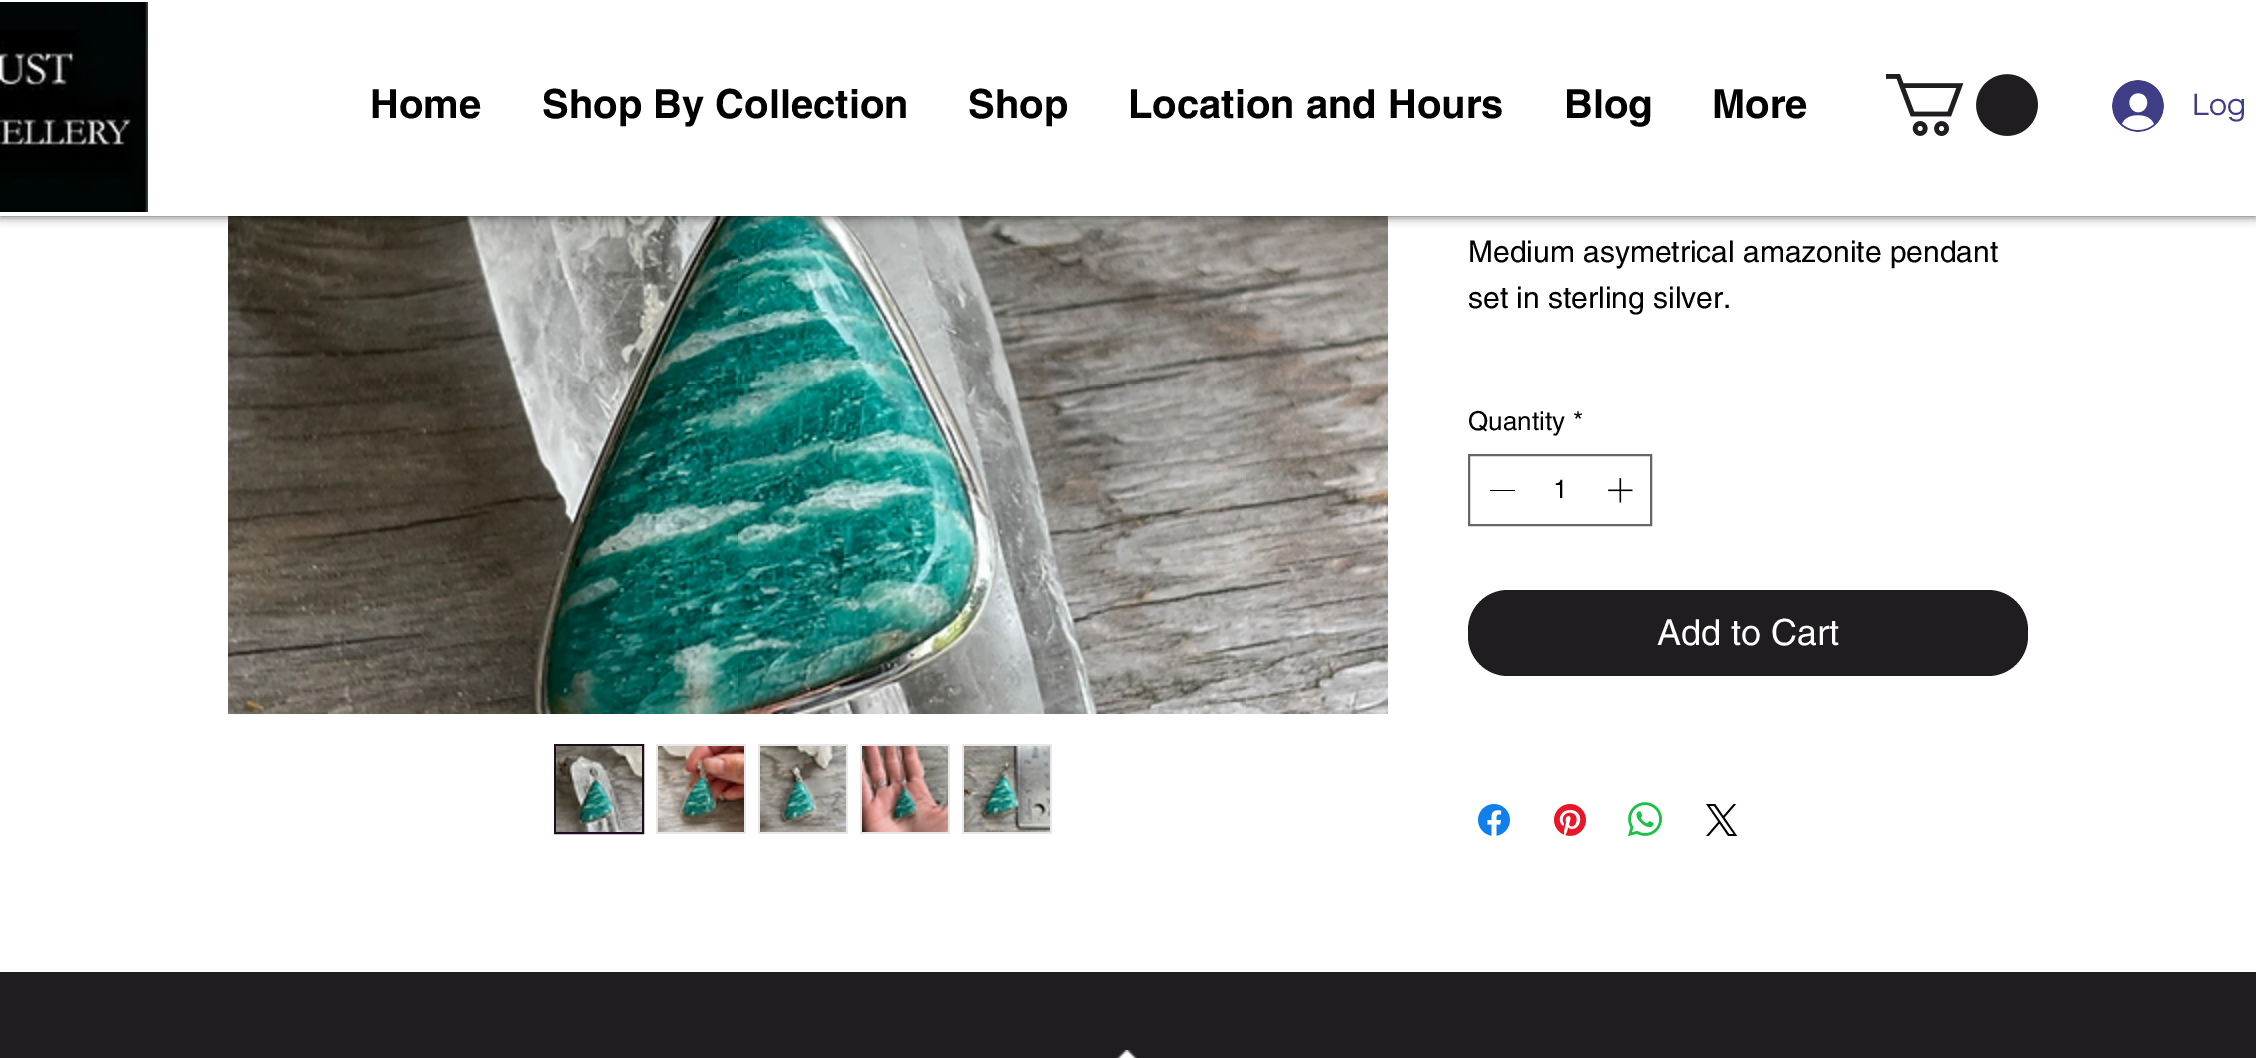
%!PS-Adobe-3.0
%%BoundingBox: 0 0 2256 1058
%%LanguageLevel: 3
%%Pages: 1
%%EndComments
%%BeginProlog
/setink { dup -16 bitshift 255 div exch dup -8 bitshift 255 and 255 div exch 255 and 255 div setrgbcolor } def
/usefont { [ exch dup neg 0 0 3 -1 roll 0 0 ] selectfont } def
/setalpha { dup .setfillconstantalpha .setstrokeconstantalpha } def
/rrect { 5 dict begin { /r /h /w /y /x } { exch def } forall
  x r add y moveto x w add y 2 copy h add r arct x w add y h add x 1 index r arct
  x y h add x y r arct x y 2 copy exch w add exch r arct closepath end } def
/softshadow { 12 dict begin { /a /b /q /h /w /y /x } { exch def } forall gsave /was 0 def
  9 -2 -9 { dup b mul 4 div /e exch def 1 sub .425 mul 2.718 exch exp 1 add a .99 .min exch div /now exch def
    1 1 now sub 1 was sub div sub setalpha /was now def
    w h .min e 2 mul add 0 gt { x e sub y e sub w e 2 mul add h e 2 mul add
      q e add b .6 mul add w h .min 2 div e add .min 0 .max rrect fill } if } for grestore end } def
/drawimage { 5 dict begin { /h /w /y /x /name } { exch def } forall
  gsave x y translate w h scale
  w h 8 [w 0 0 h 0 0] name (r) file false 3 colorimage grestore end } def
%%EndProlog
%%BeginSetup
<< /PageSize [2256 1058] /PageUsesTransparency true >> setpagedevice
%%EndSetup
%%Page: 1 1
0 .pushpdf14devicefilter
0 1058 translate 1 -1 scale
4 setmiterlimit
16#FFFFFF setink
0 0 2256 1058 rectfill
(img4.raw) 228 216 1160 498 drawimage
16#000000 setink
0 0 2256 216 0 5 0.7 softshadow
16#FFFFFF setink
0 0 2256 216 rectfill
(img1.raw) 0 2 148 210 drawimage
/helvetica-Bold 40 usefont
16#000000 setink
[
    [(Home) 370 118]
    [(Shop By Collection) 542 118]
    [(Shop) 968 118]
    [(Location and Hours) 1128 118]
    [(Blog) 1564 118]
    [(More) 1712 118]
] { aload pop moveto show } forall
(img2.raw) 1886 74 152 62 drawimage
(img3.raw) 2112 80 52 52 drawimage
/Questrial-Regular 32 usefont
16#403D87 setink
2192 115 moveto (Log) show
16#1D0E1D setink
2 setlinewidth
555 745 88 88 rectstroke
(img5.raw) 556 746 86 86 drawimage
16#E8E6E6 setink
656 744 90 90 rectfill
(img6.raw) 658 746 86 86 drawimage
758 744 90 90 rectfill
(img7.raw) 760 746 86 86 drawimage
860 744 90 90 rectfill
(img8.raw) 862 746 86 86 drawimage
962 744 90 90 rectfill
(img9.raw) 964 746 86 86 drawimage
/helvetica-Regular 30 usefont
16#000000 setink
1468 262 moveto (Medium asymetrical amazonite pendant) show
1468 308 moveto (set in sterling silver.) show
/helvetica-Regular 26 usefont
1468 430 moveto (Quantity) show
1573 430 moveto (*) show
16#666666 setink
1469 455 182 70 rectstroke
16#000000 setink
1490 490 25 1 rectfill
1553 498 moveto (1) show
(img10.raw) 1608 478 25 25 drawimage
16#1F1D1F setink
1468 590 560 86 40 rrect fill
/helvetica-Regular 36 usefont
16#FFFFFF setink
1657 645 moveto (Add to Cart) show
(img11.raw) 1478 804 32 32 drawimage
(img12.raw) 1554 804 32 32 drawimage
(img13.raw) 1628 802 34 35 drawimage
(img14.raw) 1706 804 32 32 drawimage
16#1F1D1F setink
0 972 2256 86 rectfill
(img15.raw) 1115 1050 23 8 drawimage
.poppdf14devicefilter showpage
%%EOF
